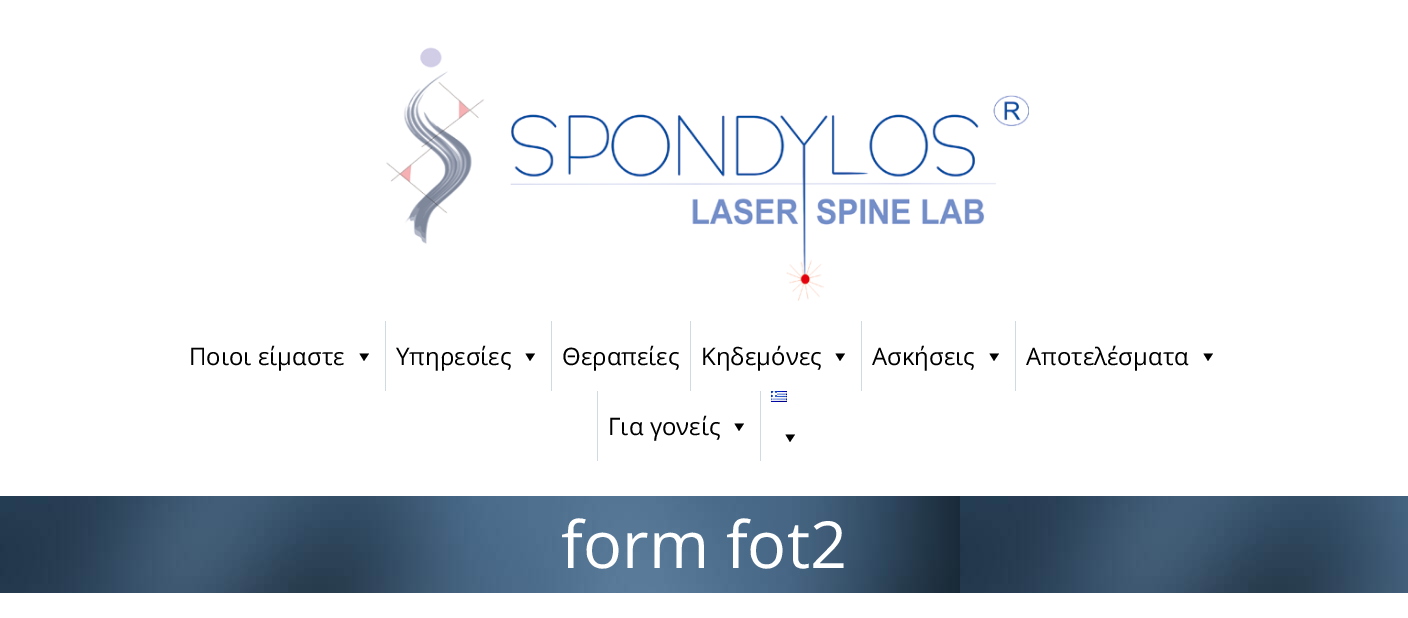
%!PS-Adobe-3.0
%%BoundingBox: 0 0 1408 618
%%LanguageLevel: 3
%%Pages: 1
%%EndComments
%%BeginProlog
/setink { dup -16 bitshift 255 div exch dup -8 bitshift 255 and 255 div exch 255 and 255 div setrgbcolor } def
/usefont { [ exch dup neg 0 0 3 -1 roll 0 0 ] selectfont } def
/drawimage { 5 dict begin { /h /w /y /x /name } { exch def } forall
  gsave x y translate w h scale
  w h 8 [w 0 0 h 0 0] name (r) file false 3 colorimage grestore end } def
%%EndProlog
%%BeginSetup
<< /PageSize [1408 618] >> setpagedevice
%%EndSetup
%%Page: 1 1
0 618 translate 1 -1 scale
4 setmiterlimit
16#FFFFFF setink
0 0 1408 618 rectfill
(img1.raw) 386 47 643 254 drawimage
/OpenSans-Regular 24 usefont
16#000000 setink
189 365 moveto (Ποιοι είμαστε) show
369 353.5 moveto 364 361 lineto 359.5 353.5 lineto closepath fill
16#CFDAE2 setink
385 321 1 70 rectfill
16#000000 setink
396 365 moveto (Υπηρεσίες) show
535 353.5 moveto 530 361 lineto 525.5 353.5 lineto closepath fill
16#CFDAE2 setink
551 321 1 70 rectfill
16#000000 setink
562 365 moveto (Θεραπείες) show
16#CFDAE2 setink
690 321 1 70 rectfill
16#000000 setink
701 365 moveto (Κηδεμόνες) show
845 353.5 moveto 840 361 lineto 835.5 353.5 lineto closepath fill
16#CFDAE2 setink
861 321 1 70 rectfill
16#000000 setink
872 365 moveto (Ασκήσεις) show
999 353.5 moveto 994 361 lineto 989.5 353.5 lineto closepath fill
16#CFDAE2 setink
1015 321 1 70 rectfill
16#000000 setink
1026 365 moveto (Αποτελέσματα) show
1213 353.5 moveto 1208 361 lineto 1203.5 353.5 lineto closepath fill
16#CFDAE2 setink
597 391 1 70 rectfill
16#000000 setink
608 435 moveto (Για γονείς) show
744 423.5 moveto 739 431 lineto 734.5 423.5 lineto closepath fill
16#CFDAE2 setink
760 391 1 70 rectfill
(img2.raw) 771 391 16 11 drawimage
16#000000 setink
795 434.5 moveto 790 442 lineto 785.5 434.5 lineto closepath fill
(img3.raw) 0 496 1408 97 drawimage
/OpenSans-Regular 65 usefont
16#FFFFFF setink
561 568 moveto (form fot2) show
showpage
%%EOF
